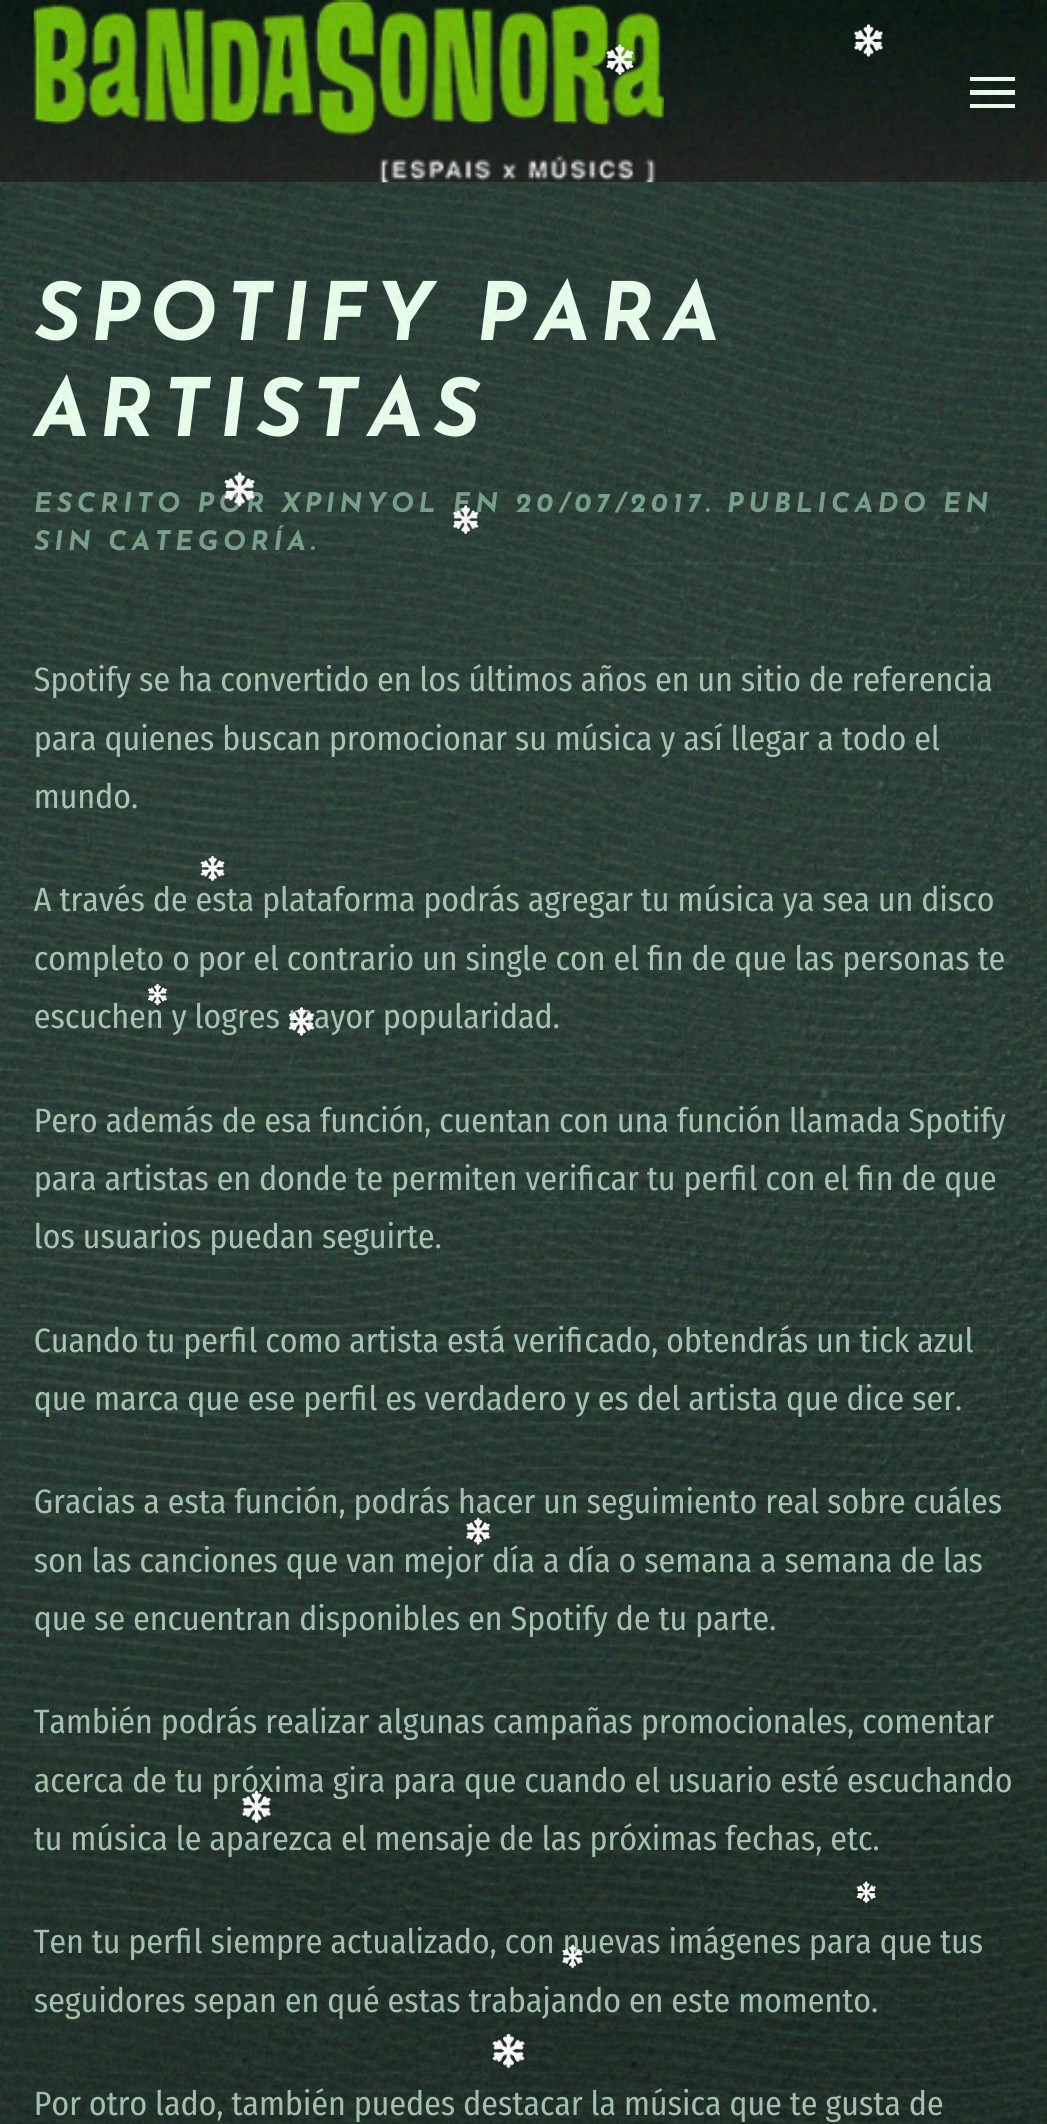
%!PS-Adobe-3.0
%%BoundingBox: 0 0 1047 2124
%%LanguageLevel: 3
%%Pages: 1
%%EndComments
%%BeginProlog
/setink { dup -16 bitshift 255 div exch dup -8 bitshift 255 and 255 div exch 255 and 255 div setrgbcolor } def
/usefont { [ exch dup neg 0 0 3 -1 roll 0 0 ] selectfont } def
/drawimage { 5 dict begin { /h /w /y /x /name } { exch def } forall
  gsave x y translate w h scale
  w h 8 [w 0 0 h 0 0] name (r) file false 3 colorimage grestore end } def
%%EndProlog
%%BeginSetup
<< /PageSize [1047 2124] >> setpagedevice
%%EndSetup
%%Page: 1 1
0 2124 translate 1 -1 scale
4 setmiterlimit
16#FFFFFF setink
0 0 1047 2124 rectfill
(img4.raw) 0 182 1047 1 drawimage
gsave 0 0 moveto 1047 0 lineto 1047 182 lineto 0 182 lineto closepath clip newpath
<< /ShadingType 2 /ColorSpace /DeviceRGB /Coords [524 0 524 182] /Extend [true true] /Function << /FunctionType 3 /Domain [0 1] /Functions [<< /FunctionType 2 /Domain [0 1] /C0 [0.012 0.075 0.047] /C1 [0.012 0.075 0.047] /N 1 >> << /FunctionType 2 /Domain [0 1] /C0 [0.012 0.075 0.047] /C1 [0.106 0.114 0.106] /N 1 >>] /Bounds [0.1] /Encode [0 1 0 1] >> >> shfill grestore
(img6.raw) 0 182 1047 1942 drawimage
(img5.raw) 33 0 631 183 drawimage
[
    [970 77 45 4 16#EAFFED]
    [970 90 45 5 16#EAFFED]
    [970 104 45 4 16#EAFFED]
] { aload pop setink rectfill } forall
/JosefinSans-ThinItalic 80.25 usefont
34 340 moveto 9 0 (SPOTIFY PARA) ashow
34 436 moveto 9 0 (ARTISTAS) ashow
/JosefinSans-ThinItalic 27 usefont
16#769E8B setink
34 512 moveto 4.5 0 (ESCRITO POR XPINYOL) ashow
453 512 moveto 4.5 0 (EN) ashow
515 512 moveto 4.5 0 (20/07/2017) ashow
705 512 moveto 4.5 0 (. PUBLICADO EN) ashow
34 550 moveto 4.5 0 (SIN CATEGORÍA.) ashow
/FiraSansCondensed-Regular 33.75 usefont
16#A8C4B4 setink
[
    [(Spotify se ha convertido en los últimos años en un sitio de referencia) 34 691]
    [(para quienes buscan promocionar su música y así llegar a todo el) 34 750]
    [(mundo.) 34 808]
    [(A través de esta plataforma podrás agregar tu música ya sea un disco) 34 911]
    [(completo o por el contrario un single con el fin de que las personas te) 34 970]
    [(escuchen y logres mayor popularidad.) 34 1028]
    [(Pero además de esa función, cuentan con una función llamada Spotify) 34 1132]
    [(para artistas en donde te permiten verificar tu perfil con el fin de que) 34 1190]
    [(los usuarios puedan seguirte.) 34 1248]
    [(Cuando tu perfil como artista está verificado, obtendrás un tick azul) 34 1352]
    [(que marca que ese perfil es verdadero y es del artista que dice ser.) 34 1410]
    [(Gracias a esta función, podrás hacer un seguimiento real sobre cuáles) 34 1513]
    [(son las canciones que van mejor día a día o semana a semana de las) 34 1572]
    [(que se encuentran disponibles en Spotify de tu parte.) 34 1630]
    [(También podrás realizar algunas campañas promocionales, comentar) 34 1733]
    [(acerca de tu próxima gira para que cuando el usuario esté escuchando) 34 1792]
    [(tu música le aparezca el mensaje de las próximas fechas, etc.) 34 1850]
    [(Ten tu perfil siempre actualizado, con nuevas imágenes para que tus) 34 1953]
    [(seguidores sepan en qué estas trabajando en este momento.) 34 2012]
    [(Por otro lado, también puedes destacar la música que te gusta de) 34 2115]
] { aload pop moveto show } forall
(img1.raw) 0 0 1047 2124 drawimage
(img2.raw) 605 42 30 34 drawimage
(img3.raw) 854 24 29 33 drawimage
(img7.raw) 223 471 33 37 drawimage
(img8.raw) 453 505 26 30 drawimage
(img9.raw) 200 855 25 27 drawimage
(img10.raw) 148 983 20 23 drawimage
(img11.raw) 288 1007 27 29 drawimage
(img12.raw) 466 1517 25 28 drawimage
(img13.raw) 242 1789 29 34 drawimage
(img14.raw) 856 1881 20 22 drawimage
(img15.raw) 562 1944 22 24 drawimage
(img16.raw) 492 2033 33 35 drawimage
showpage
%%EOF
